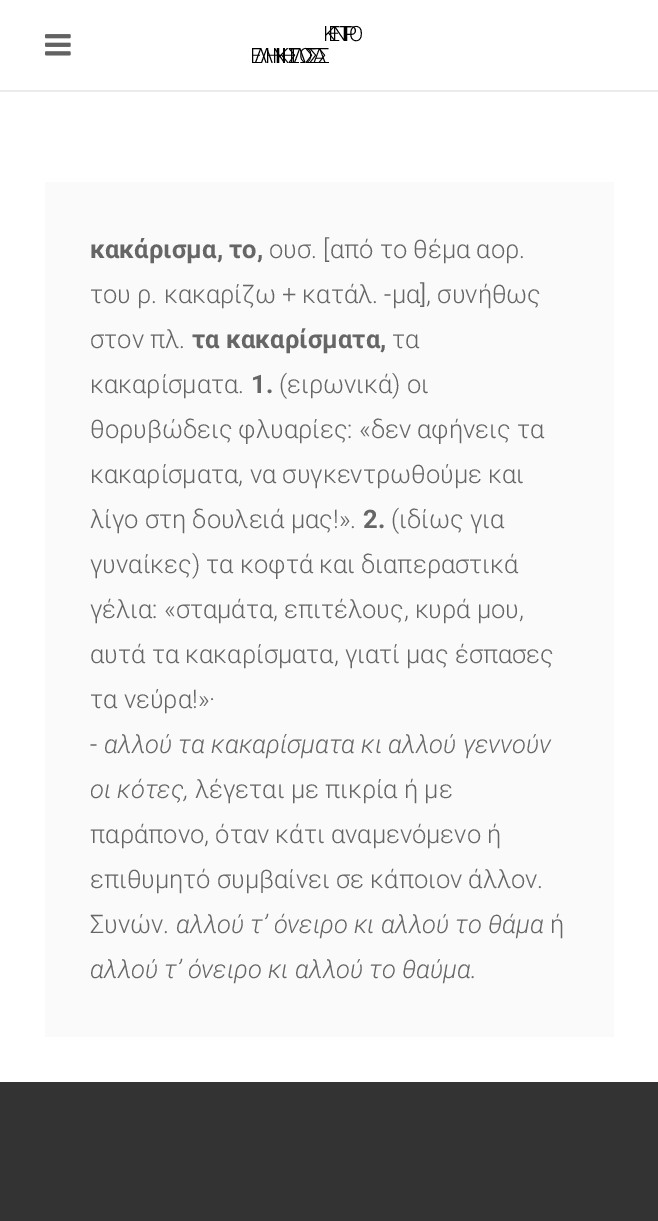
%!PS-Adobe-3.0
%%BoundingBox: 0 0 658 1221
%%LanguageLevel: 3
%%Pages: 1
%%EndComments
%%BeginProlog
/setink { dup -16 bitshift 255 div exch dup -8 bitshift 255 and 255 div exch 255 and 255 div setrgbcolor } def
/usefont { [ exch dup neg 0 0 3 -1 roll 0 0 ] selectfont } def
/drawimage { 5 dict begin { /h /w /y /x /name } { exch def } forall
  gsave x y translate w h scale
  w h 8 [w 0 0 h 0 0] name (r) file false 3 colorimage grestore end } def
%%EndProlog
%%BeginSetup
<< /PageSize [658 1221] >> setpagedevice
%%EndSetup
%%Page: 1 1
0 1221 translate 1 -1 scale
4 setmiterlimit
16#FFFFFF setink
0 0 658 1221 rectfill
16#EBEBEB setink
0 90 658 2 rectfill
(img1.raw) 45 34 26 22 drawimage
/Roboto-Light 21 usefont
16#000000 setink
323 41 moveto -8 0 (ΚΕΝΤΡΟ) ashow
250 63 moveto -8 0 (ΕΛΛΗΝ) ashow
276 63 moveto -8 0 (ΚΗΣ) ashow
289 63 moveto -7.75 0 (ΓΛΩΣΣΑΣ) ashow
16#FAFAFA setink
45 182 569 855 rectfill
/Roboto-Bold 25.5 usefont
16#666666 setink
90 258 moveto (κακάρισμα, το,) show
/Roboto-Light 25.5 usefont
[
    [(ουσ. [από το θέμα αορ.) 269 258]
    [(του ρ. κακαρίζω + κατάλ. -μα], συνήθως) 90 303]
    [(στον πλ.) 90 348]
] { aload pop moveto show } forall
/Roboto-Bold 25.5 usefont
192 348 moveto (τα κακαρίσματα,) show
/Roboto-Light 25.5 usefont
392 348 moveto (τα) show
90 393 moveto (κακαρίσματα.) show
/Roboto-Bold 25.5 usefont
251 393 moveto (1.) show
/Roboto-Light 25.5 usefont
[
    [(\(ειρωνικά\) οι) 279 393]
    [(θορυβώδεις φλυαρίες: «δεν αφήνεις τα) 90 438]
    [(κακαρίσματα, να συγκεντρωθούμε και) 90 483]
    [(λίγο στη δουλειά μας!».) 90 528]
] { aload pop moveto show } forall
/Roboto-Bold 25.5 usefont
363 528 moveto (2.) show
/Roboto-Light 25.5 usefont
[
    [(\(ιδίως για) 391 528]
    [(γυναίκες\) τα κοφτά και διαπεραστικά) 90 573]
    [(γέλια: «σταμάτα, επιτέλους, κυρά μου,) 90 618]
    [(αυτά τα κακαρίσματα, γιατί μας έσπασες) 90 663]
    [(τα νεύρα!»·) 90 708]
    [(-) 90 753]
] { aload pop moveto show } forall
/Roboto-LightItalic 25.5 usefont
104 753 moveto (αλλού τα κακαρίσματα κι αλλού γεννούν) show
90 798 moveto (οι κότες,) show
/Roboto-Light 25.5 usefont
[
    [(λέγεται με πικρία ή με) 195 798]
    [(παράπονο, όταν κάτι αναμενόμενο ή) 90 843]
    [(επιθυμητό συμβαίνει σε κάποιον άλλον.) 90 888]
    [(Συνών.) 90 933]
] { aload pop moveto show } forall
/Roboto-LightItalic 25.5 usefont
176 933 moveto (αλλού τ’ όνειρο κι αλλού το θάμα) show
/Roboto-Light 25.5 usefont
550 933 moveto (ή) show
/Roboto-LightItalic 25.5 usefont
90 978 moveto (αλλού τ’ όνειρο κι αλλού το θαύμα.) show
16#333333 setink
0 1082 658 139 rectfill
showpage
%%EOF
